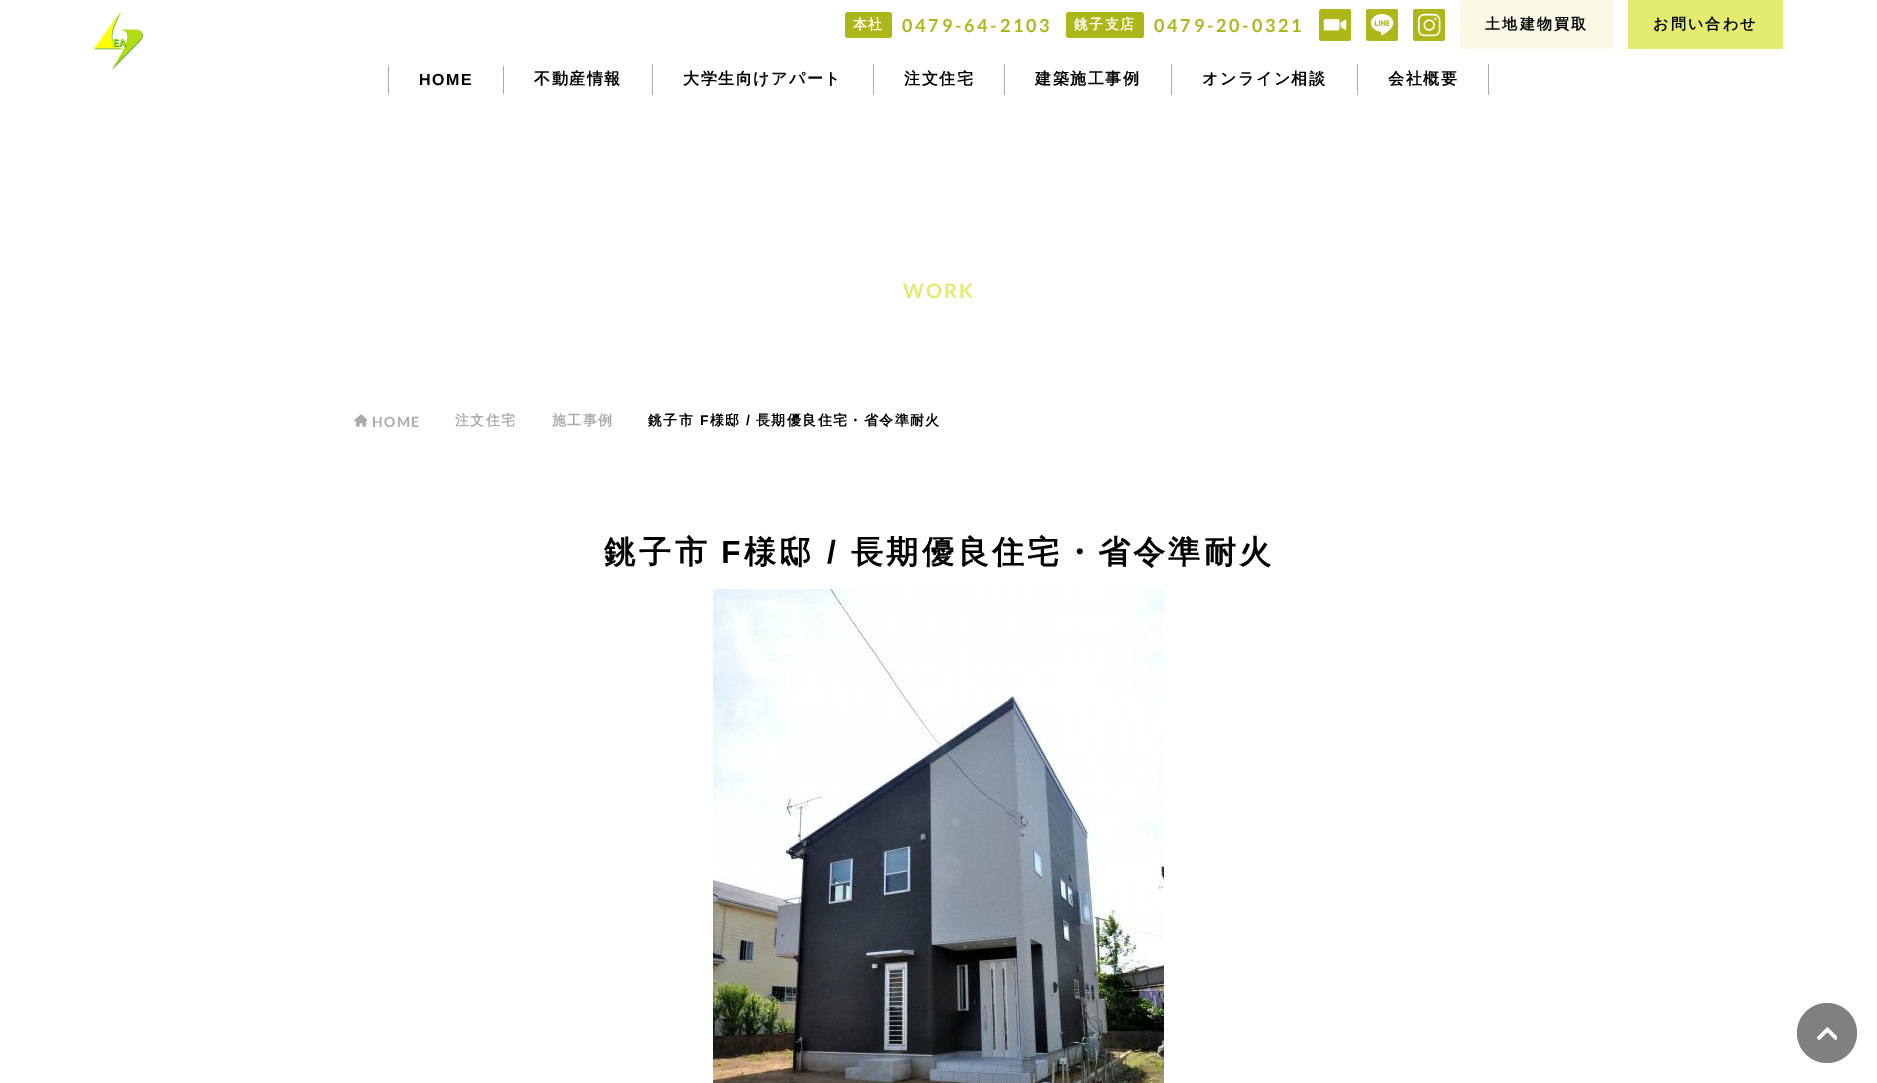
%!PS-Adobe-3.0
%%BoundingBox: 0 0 1877 1083
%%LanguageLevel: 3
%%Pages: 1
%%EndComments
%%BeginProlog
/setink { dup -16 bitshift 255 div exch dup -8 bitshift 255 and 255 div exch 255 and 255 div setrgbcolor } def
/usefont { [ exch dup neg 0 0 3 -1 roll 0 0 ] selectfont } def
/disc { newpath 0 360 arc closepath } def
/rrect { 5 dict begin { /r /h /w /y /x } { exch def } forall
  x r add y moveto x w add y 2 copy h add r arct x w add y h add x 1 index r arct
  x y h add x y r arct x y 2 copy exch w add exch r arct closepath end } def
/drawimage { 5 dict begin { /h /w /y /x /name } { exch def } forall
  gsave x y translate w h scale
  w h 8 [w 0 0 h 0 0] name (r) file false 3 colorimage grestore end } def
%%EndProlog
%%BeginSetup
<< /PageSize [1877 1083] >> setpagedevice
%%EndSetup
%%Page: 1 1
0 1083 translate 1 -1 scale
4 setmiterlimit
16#FFFFFF setink
0 0 1877 1083 rectfill
(img1.raw) 94 10 49 60 drawimage
16#ADB71A setink
845 12 47 26 3 rrect fill
/WenQuanYiZenHei-Bold 14 usefont
16#FFFFFF setink
853 29 moveto 1.4 0 (本社) ashow
/Lato-Bold 18 usefont
16#ADB71A setink
902 32 moveto 2.75 0 (0479-64-2103) ashow
1066 12 78 26 3 rrect fill
/WenQuanYiZenHei-Bold 14 usefont
16#FFFFFF setink
1074 29 moveto 1.4 0 (銚子支店) ashow
/Lato-Bold 18 usefont
16#ADB71A setink
1154 32 moveto 2.75 0 (0479-20-0321) ashow
(img2.raw) 1319 9 32 32 drawimage
(img3.raw) 1366 9 32 32 drawimage
(img4.raw) 1413 9 32 32 drawimage
16#FBF9E4 setink
1460 0 153 49 rectfill
/WenQuanYiZenHei-Bold 15 usefont
16#000000 setink
1485 29 moveto 2.25 0 (土地建物買取) ashow
16#E3EB71 setink
1628 0 155 49 rectfill
16#000000 setink
1653 29 moveto 2.25 0 (お問い合わせ) ashow
16#AAAAAA setink
503 66 1 28 rectfill
388 66 1 28 rectfill
/LiberationSans-Bold 16 usefont
16#000000 setink
419 85 moveto 1.5 0 (HOME) ashow
16#AAAAAA setink
652 64 1 31 rectfill
/WenQuanYiZenHei-Bold 16 usefont
16#000000 setink
534 84 moveto 1.5 0 (不動産情報) ashow
16#AAAAAA setink
873 64 1 31 rectfill
16#000000 setink
683 84 moveto 1.5 0 (大学生向けアパート) ashow
16#AAAAAA setink
1004 64 1 31 rectfill
16#000000 setink
904 84 moveto 1.5 0 (注文住宅) ashow
16#AAAAAA setink
1171 64 1 31 rectfill
16#000000 setink
1035 84 moveto 1.5 0 (建築施工事例) ashow
16#AAAAAA setink
1357 64 1 31 rectfill
16#000000 setink
1202 84 moveto 1.5 0 (オンライン相談) ashow
16#AAAAAA setink
1488 64 1 31 rectfill
16#000000 setink
1388 84 moveto 1.5 0 (会社概要) ashow
/Lato-Bold 20 usefont
16#E3EB71 setink
903 298 moveto 2 0 (WORK) ashow
(img5.raw) 354 414 13 13 drawimage
/Lato-Bold 14 usefont
16#AAAAAA setink
372 427 moveto 1.4 0 (HOME) ashow
/WenQuanYiZenHei-Bold 14 usefont
455 425 moveto 1.4 0 (注文住宅) ashow
552 425 moveto 1.4 0 (施工事例) ashow
16#000000 setink
648 425 moveto 1.4 0 (銚子市) ashow
/LiberationSans-Bold 14 usefont
700 425 moveto 1.4 0 (F) ashow
/WenQuanYiZenHei-Bold 14 usefont
710 425 moveto 1.4 0 (様邸) ashow
/LiberationSans-Bold 14 usefont
746 425 moveto 1.4 0 (/) ashow
/WenQuanYiZenHei-Bold 14 usefont
756 425 moveto 1.4 0 (長期優良住宅・省令準耐火) ashow
/WenQuanYiZenHei-Bold 32 usefont
604 563 moveto 3.25 0 (銚子市) ashow
/LiberationSans-Bold 32 usefont
721 563 moveto 3.25 0 (F) ashow
/WenQuanYiZenHei-Bold 32 usefont
744 563 moveto 3.25 0 (様邸) ashow
/LiberationSans-Bold 32 usefont
827 563 moveto 3.25 0 (/) ashow
/WenQuanYiZenHei-Bold 32 usefont
851 563 moveto 3.25 0 (長期優良住宅・省令準耐火) ashow
(img6.raw) 713 589 451 494 drawimage
16#808080 setink
1827 1033 30 disc fill
(img7.raw) 1817 1027 20 13 drawimage
showpage
%%EOF
